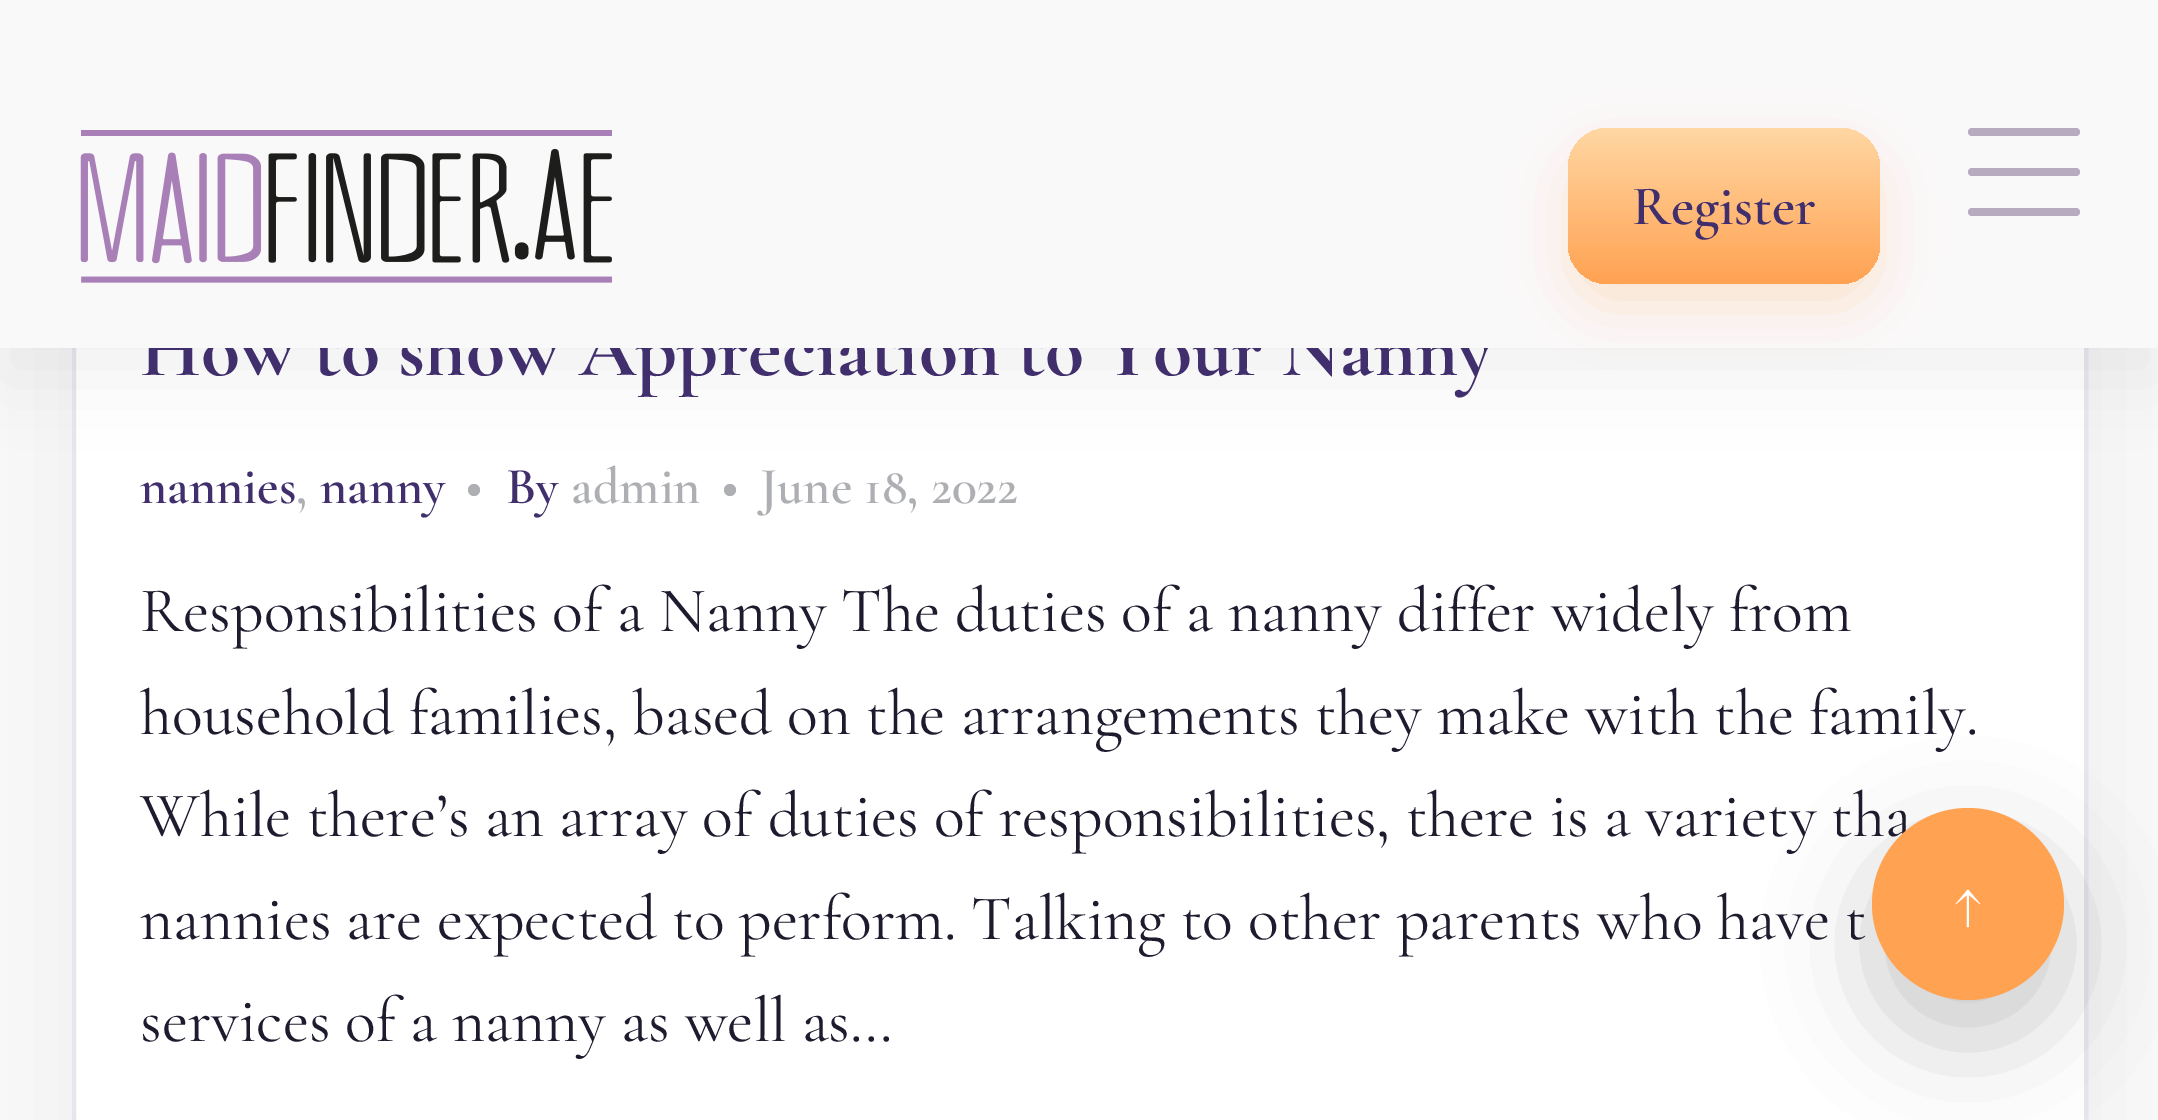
%!PS-Adobe-3.0
%%BoundingBox: 0 0 2158 1120
%%LanguageLevel: 3
%%Pages: 1
%%EndComments
%%BeginProlog
/setink { dup -16 bitshift 255 div exch dup -8 bitshift 255 and 255 div exch 255 and 255 div setrgbcolor } def
/usefont { [ exch dup neg 0 0 3 -1 roll 0 0 ] selectfont } def
/setalpha { dup .setfillconstantalpha .setstrokeconstantalpha } def
/disc { newpath 0 360 arc closepath } def
/rrect { 5 dict begin { /r /h /w /y /x } { exch def } forall
  x r add y moveto x w add y 2 copy h add r arct x w add y h add x 1 index r arct
  x y h add x y r arct x y 2 copy exch w add exch r arct closepath end } def
/softshadow { 12 dict begin { /a /b /q /h /w /y /x } { exch def } forall gsave /was 0 def
  9 -2 -9 { dup b mul 4 div /e exch def 1 sub .425 mul 2.718 exch exp 1 add a .99 .min exch div /now exch def
    1 1 now sub 1 was sub div sub setalpha /was now def
    w h .min e 2 mul add 0 gt { x e sub y e sub w e 2 mul add h e 2 mul add
      q e add b .6 mul add w h .min 2 div e add .min 0 .max rrect fill } if } for grestore end } def
/drawimage { 5 dict begin { /h /w /y /x /name } { exch def } forall
  gsave x y translate w h scale
  w h 8 [w 0 0 h 0 0] name (r) file false 3 colorimage grestore end } def
%%EndProlog
%%BeginSetup
<< /PageSize [2158 1120] /PageUsesTransparency true >> setpagedevice
%%EndSetup
%%Page: 1 1
0 .pushpdf14devicefilter
0 1120 translate 1 -1 scale
4 setmiterlimit
16#FAF9FA setink
0 0 2158 1120 rectfill
16#0F0A23 setink
72 -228 2016 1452 72 52 0.06 softshadow
16#FFFFFF setink
72 -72 2016 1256 72 rrect fill
0.12 setalpha
16#412F6D setink
4 setlinewidth
74 -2 2012 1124 rectstroke
1 setalpha
16#ADAFB3 setink
474 490 6 disc fill
730 490 6 disc fill
16#000000 setink
0 32 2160 348 0 40 0.06 softshadow
/CormorantGaramond-Bold 80 usefont
16#412F6D setink
140 375 moveto (How to show Appreciation to Your Nanny) show
16#FAF9FA setink
0 0 2158 348 rectfill
(img1.raw) 80 130 532 153 drawimage
16#FFA252 setink
1568 152 312 156 40 28 0.25 softshadow
gsave 1568 128 312 156 40 rrect clip newpath
<< /ShadingType 2 /ColorSpace /DeviceRGB /Coords [1724 128 1724 284] /Extend [true true] /Function << /FunctionType 2 /Domain [0 1] /C0 [1 0.843 0.639] /C1 [1 0.635 0.322] /N 1 >> >> shfill grestore
/CormorantGaramond-SemiBold 56 usefont
16#412F6D setink
1632 224 moveto (Register) show
16#B7ACBF setink
1968 128 112 8 4 rrect fill
1968 168 112 8 4 rrect fill
1968 208 112 8 4 rrect fill
/CormorantGaramond-SemiBold 52 usefont
16#412F6D setink
140 503 moveto (nannies) show
320 503 moveto (nanny) show
16#ADAFB3 setink
296 503 moveto (,) show
16#412F6D setink
506 503 moveto (By) show
16#ADAFB3 setink
571 503 moveto (admin) show
760 503 moveto (June 18, 2022) show
/CormorantGaramond-Regular 64 usefont
16#1F1B2E setink
[
    [(Responsibilities of a Nanny The duties of a nanny differ widely from) 140 631]
    [(household families, based on the arrangements they make with the family.) 140 734]
    [(While there’s an array of duties of responsibilities, there is a variety tha) 140 836]
    [(nannies are expected to perform. Talking to other parents who have t) 140 939]
    [(services of a nanny as well as…) 140 1041]
] { aload pop moveto show } forall
16#000000 setink
1872 848 192 192 96 50 0.2 softshadow
16#FFA252 setink
1968 904 96 disc fill
16#FFFFFF setink
1954 924 moveto (↑) show
.poppdf14devicefilter showpage
%%EOF
